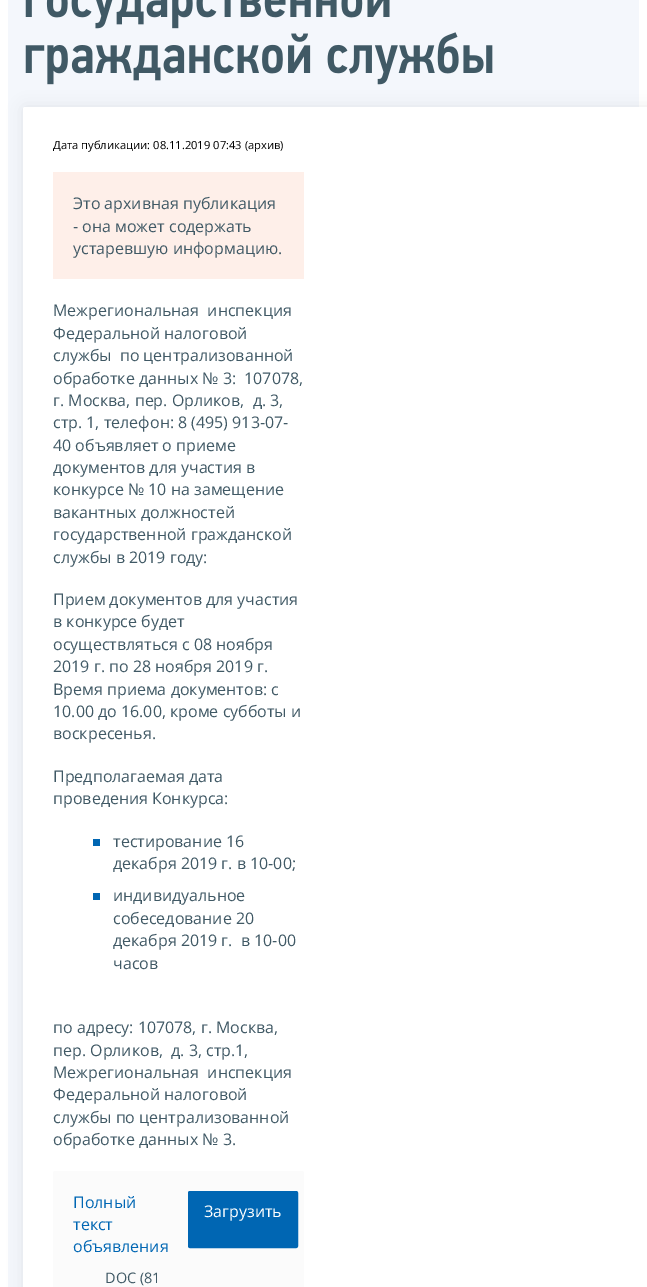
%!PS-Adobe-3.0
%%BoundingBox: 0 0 647 1287
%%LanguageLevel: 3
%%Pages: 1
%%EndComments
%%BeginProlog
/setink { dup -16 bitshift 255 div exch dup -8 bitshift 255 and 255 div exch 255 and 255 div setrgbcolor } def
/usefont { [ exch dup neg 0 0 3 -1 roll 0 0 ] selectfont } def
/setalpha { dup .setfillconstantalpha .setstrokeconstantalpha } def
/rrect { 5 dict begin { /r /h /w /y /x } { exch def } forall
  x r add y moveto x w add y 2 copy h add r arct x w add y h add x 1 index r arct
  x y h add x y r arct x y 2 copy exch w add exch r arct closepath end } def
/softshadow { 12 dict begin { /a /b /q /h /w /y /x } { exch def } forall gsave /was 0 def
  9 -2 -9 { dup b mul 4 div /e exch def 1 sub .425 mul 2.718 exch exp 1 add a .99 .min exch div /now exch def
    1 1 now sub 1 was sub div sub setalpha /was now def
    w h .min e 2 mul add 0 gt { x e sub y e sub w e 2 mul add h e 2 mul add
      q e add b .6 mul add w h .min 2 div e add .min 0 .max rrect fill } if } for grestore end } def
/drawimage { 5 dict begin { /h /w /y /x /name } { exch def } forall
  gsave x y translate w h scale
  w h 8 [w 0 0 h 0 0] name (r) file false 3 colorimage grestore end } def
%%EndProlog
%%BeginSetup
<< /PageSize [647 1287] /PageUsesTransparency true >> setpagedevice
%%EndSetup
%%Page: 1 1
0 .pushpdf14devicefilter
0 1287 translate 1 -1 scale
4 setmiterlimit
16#FFFFFF setink
0 0 647 1287 rectfill
16#F4F7FC setink
8 0 631 1287 rectfill
(img1.raw) 25 0 365 29 drawimage
16#000000 setink
23 107 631 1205 2 7.5 0.07 softshadow
(img2.raw) 25 32 468 53 drawimage
16#FFFFFF setink
23 107 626 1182 2 rrect fill
/OpenSans-Regular 11.2 usefont
16#000000 setink
53 149 moveto (Дата публикации: 08.11.2019 07:43 \(архив\)) show
16#FEEFE9 setink
53 172 251 107 rectfill
/OpenSans-Regular 16 usefont
16#405965 setink
[
    [(Это архивная публикация) 73 209]
    [(- она может содержать) 73 232]
    [(устаревшую информацию.) 73 254]
    [(Межрегиональная  инспекция) 53 316]
    [(Федеральной налоговой) 53 339]
    [(службы  по централизованной) 53 361]
    [(обработке данных № 3:  107078,) 53 384]
    [(г. Москва, пер. Орликов,  д. 3,) 53 406]
    [(стр. 1, телефон: 8 \(495\) 913-07-) 53 428]
    [(40 объявляет о приеме) 53 451]
    [(документов для участия в) 53 473]
    [(конкурсе № 10 на замещение) 53 495]
    [(вакантных должностей) 53 518]
    [(государственной гражданской) 53 540]
    [(службы в 2019 году:) 53 563]
    [(Прием документов для участия) 53 605]
    [(в конкурсе будет) 53 627]
    [(осуществляться с 08 ноября) 53 650]
    [(2019 г. по 28 ноября 2019 г.) 53 672]
    [(Время приема документов: с) 53 695]
    [(10.00 до 16.00, кроме субботы и) 53 717]
    [(воскресенья.) 53 739]
    [(Предполагаемая дата) 53 782]
    [(проведения Конкурса:) 53 804]
] { aload pop moveto show } forall
16#0066B3 setink
93 839 7 7 rectfill
16#405965 setink
113 847 moveto (тестирование 16) show
113 869 moveto (декабря 2019 г. в 10-00;) show
16#0066B3 setink
93 893 7 7 rectfill
16#405965 setink
[
    [(индивидуальное) 113 901]
    [(собеседование 20) 113 924]
    [(декабря 2019 г.  в 10-00) 113 946]
    [(часов) 113 969]
    [(по адресу: 107078, г. Москва,) 53 1033]
    [(пер. Орликов,  д. 3, стр.1,) 53 1056]
    [(Межрегиональная  инспекция) 53 1078]
    [(Федеральной налоговой) 53 1100]
    [(службы по централизованной) 53 1123]
    [(обработке данных № 3.) 53 1145]
] { aload pop moveto show } forall
16#FBFBFB setink
53 1171 251 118 2 rrect fill
16#0066B3 setink
[
    [(Полный) 73 1208]
    [(текст) 73 1230]
    [(объявления) 73 1252]
] { aload pop moveto show } forall
/OpenSans-Regular 14.5 usefont
16#405965 setink
105 1283 moveto (DOC \(81) show
16#0066B3 setink
188.5 1191.5 109 56 1.5 rrect gsave fill grestore
stroke
/OpenSans-Regular 16 usefont
16#FFFFFF setink
204 1217 moveto (Загрузить) show
.poppdf14devicefilter showpage
%%EOF
